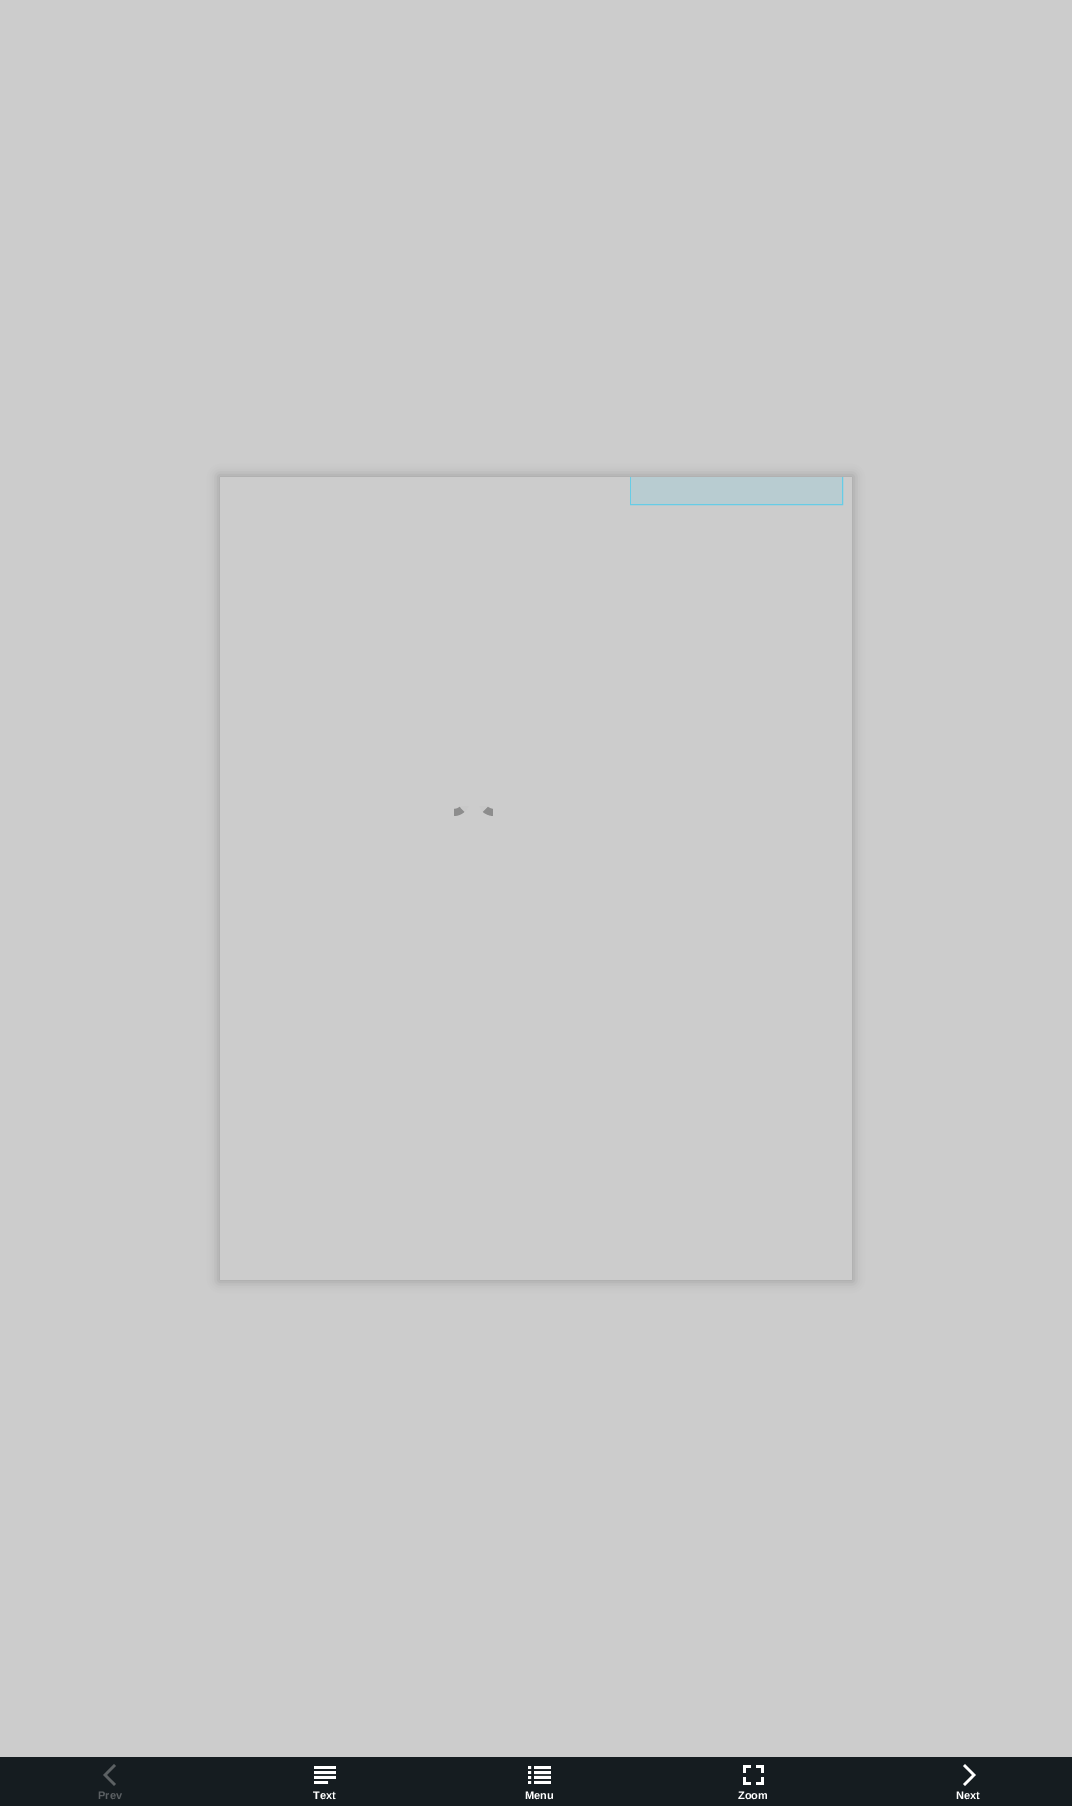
%!PS-Adobe-3.0
%%BoundingBox: 0 0 1072 1806
%%LanguageLevel: 3
%%Pages: 1
%%EndComments
%%BeginProlog
/setink { dup -16 bitshift 255 div exch dup -8 bitshift 255 and 255 div exch 255 and 255 div setrgbcolor } def
/usefont { [ exch dup neg 0 0 3 -1 roll 0 0 ] selectfont } def
/setalpha { dup .setfillconstantalpha .setstrokeconstantalpha } def
/rrect { 5 dict begin { /r /h /w /y /x } { exch def } forall
  x r add y moveto x w add y 2 copy h add r arct x w add y h add x 1 index r arct
  x y h add x y r arct x y 2 copy exch w add exch r arct closepath end } def
/softshadow { 12 dict begin { /a /b /q /h /w /y /x } { exch def } forall gsave /was 0 def
  9 -2 -9 { dup b mul 4 div /e exch def 1 sub .425 mul 2.718 exch exp 1 add a .99 .min exch div /now exch def
    1 1 now sub 1 was sub div sub setalpha /was now def
    w h .min e 2 mul add 0 gt { x e sub y e sub w e 2 mul add h e 2 mul add
      q e add b .6 mul add w h .min 2 div e add .min 0 .max rrect fill } if } for grestore end } def
/drawimage { 5 dict begin { /h /w /y /x /name } { exch def } forall
  gsave x y translate w h scale
  w h 8 [w 0 0 h 0 0] name (r) file false 3 colorimage grestore end } def
%%EndProlog
%%BeginSetup
<< /PageSize [1072 1806] /PageUsesTransparency true >> setpagedevice
%%EndSetup
%%Page: 1 1
0 .pushpdf14devicefilter
0 1806 translate 1 -1 scale
4 setmiterlimit
16#CCCCCC setink
0 0 1072 1806 rectfill
gsave
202 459 moveto 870 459 lineto 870 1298 lineto 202 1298 lineto closepath 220 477 moveto 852 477 lineto 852 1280 lineto 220 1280 lineto closepath eoclip newpath
16#000000 setink
218 475 636 807 0 5 0.2 softshadow
grestore
gsave
220 477 632 803 rectclip
16#66CCE6 setink
630.5 474.5 212 30 rectstroke
grestore
16#B8CCD1 setink
631 477 211 27 rectfill
(img1.raw) 454 806 39 10 drawimage
16#151C20 setink
0 1757 1072 49 rectfill
(img2.raw) 103 1764 13 22 drawimage
/LiberationSans-Bold 11 usefont
16#5B6063 setink
98 1799 moveto (Prev) show
(img3.raw) 314 1766 22 18 drawimage
16#FFFFFF setink
313 1799 moveto (Text) show
(img4.raw) 528 1766 23 18 drawimage
525 1799 moveto (Menu) show
(img5.raw) 743 1765 21 20 drawimage
738 1799 moveto (Zoom) show
(img6.raw) 963 1764 13 22 drawimage
956 1799 moveto (Next) show
.poppdf14devicefilter showpage
%%EOF
